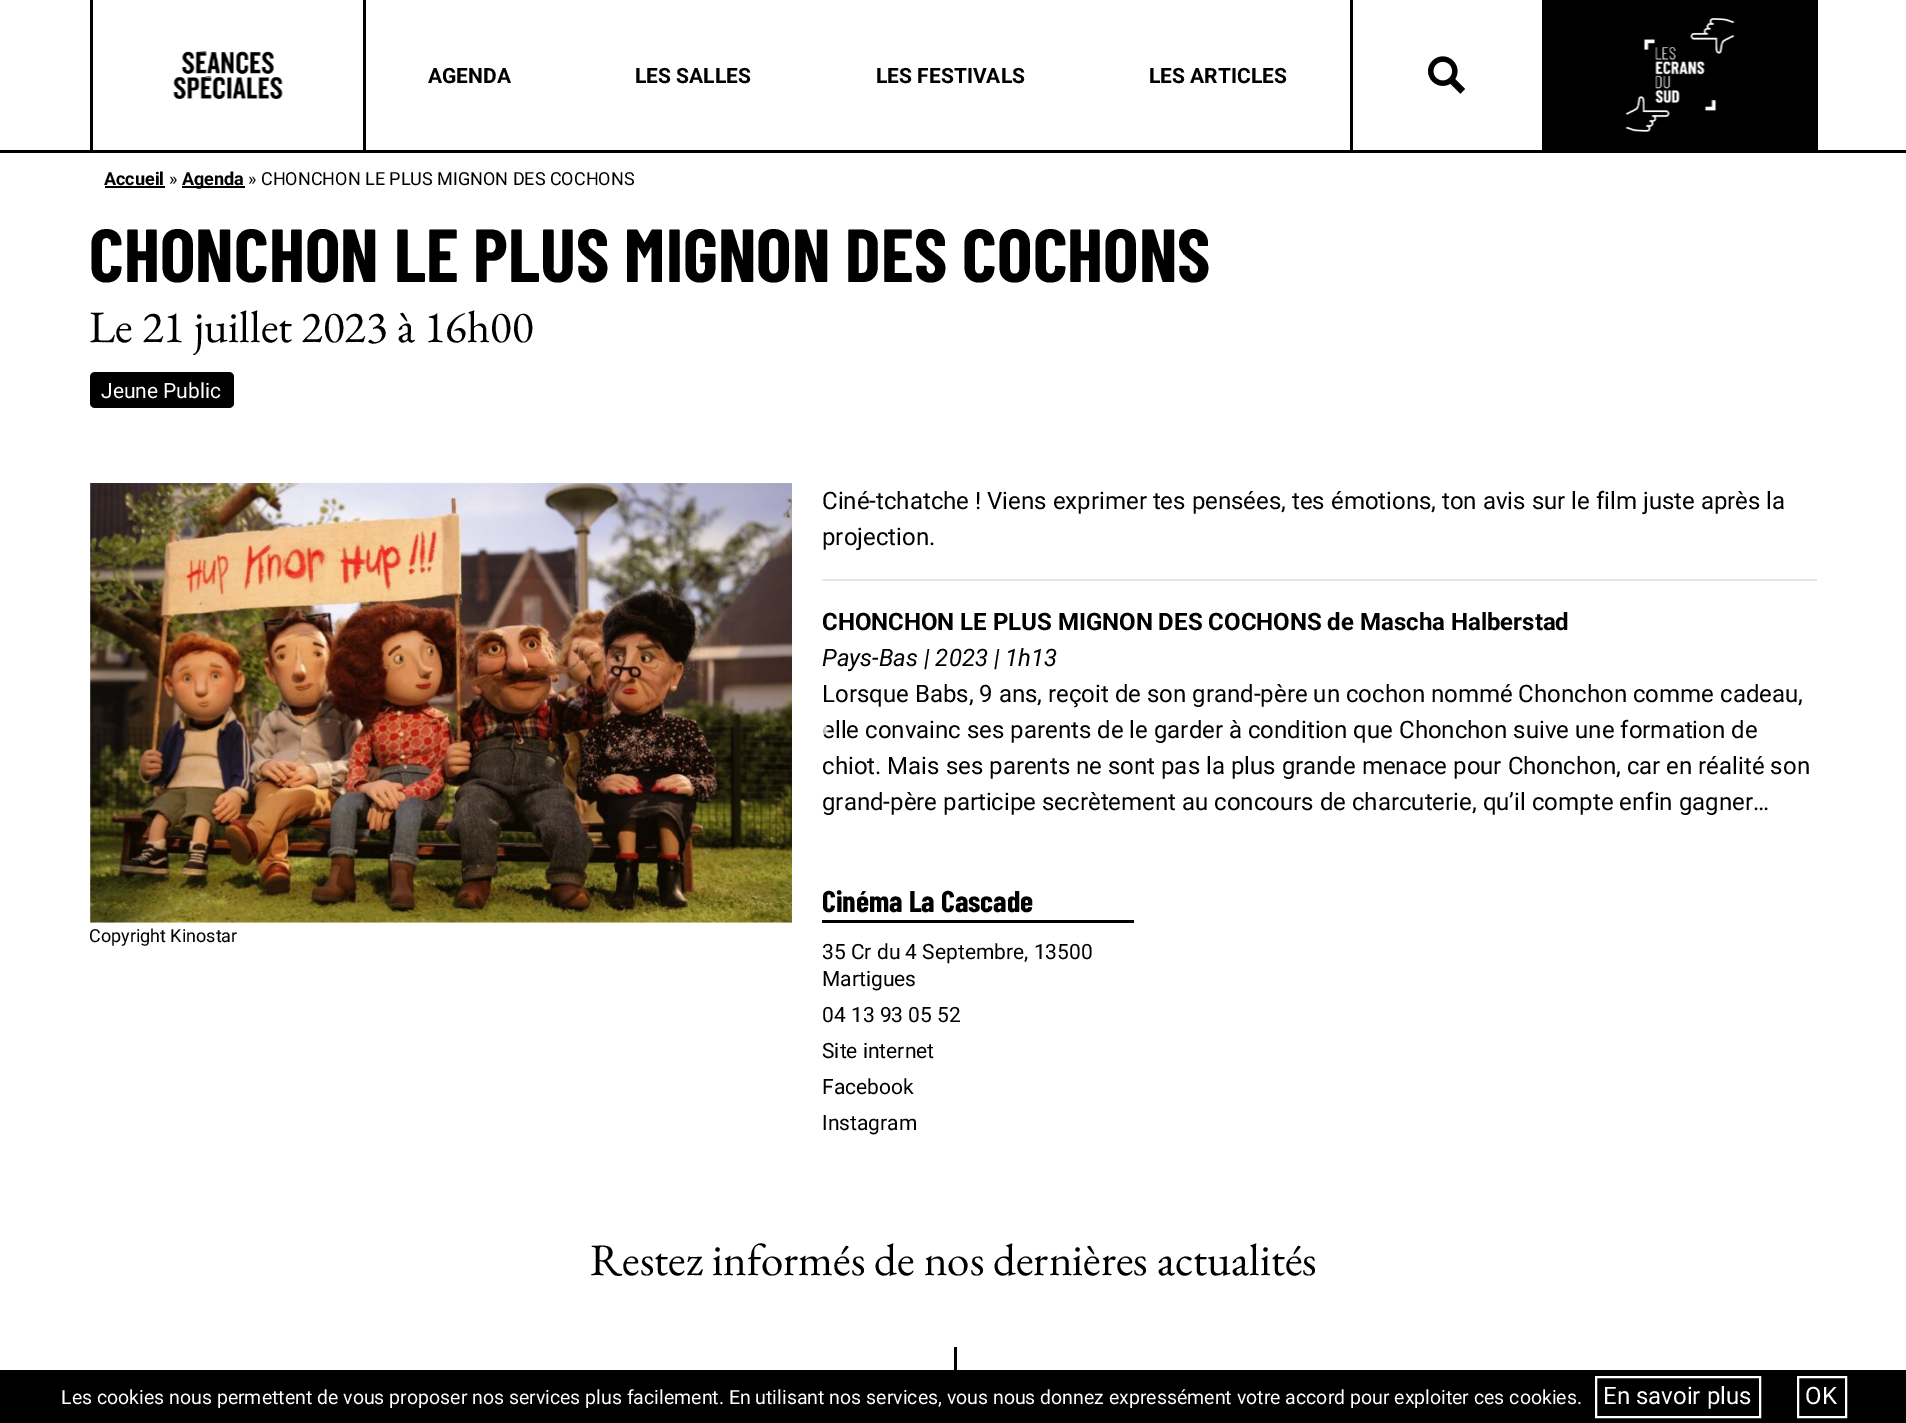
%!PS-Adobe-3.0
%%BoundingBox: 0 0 1906 1423
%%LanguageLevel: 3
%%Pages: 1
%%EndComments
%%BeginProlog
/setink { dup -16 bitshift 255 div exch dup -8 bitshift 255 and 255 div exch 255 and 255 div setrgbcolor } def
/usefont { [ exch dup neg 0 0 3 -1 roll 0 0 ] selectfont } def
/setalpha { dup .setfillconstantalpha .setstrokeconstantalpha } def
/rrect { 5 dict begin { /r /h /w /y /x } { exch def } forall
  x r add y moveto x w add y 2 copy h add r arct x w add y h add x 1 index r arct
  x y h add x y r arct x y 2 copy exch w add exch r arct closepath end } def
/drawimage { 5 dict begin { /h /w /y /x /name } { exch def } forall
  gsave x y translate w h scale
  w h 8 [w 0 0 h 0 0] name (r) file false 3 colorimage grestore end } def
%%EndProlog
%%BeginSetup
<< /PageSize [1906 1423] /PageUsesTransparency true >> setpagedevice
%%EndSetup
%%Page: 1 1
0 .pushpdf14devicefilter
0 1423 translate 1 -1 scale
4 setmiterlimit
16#FFFFFF setink
0 0 1906 1423 rectfill
16#000000 setink
0 150 1906 3 rectfill
90 0 3 150 rectfill
(img1.raw) 173 51 110 48 drawimage
1542 0 276 150 rectfill
1350 0 3 150 rectfill
(img2.raw) 1428 56 38 38 drawimage
363 0 3 153 rectfill
/Roboto-Bold 21 usefont
[
    [(AGENDA) 428 83]
    [(LES SALLES) 635 83]
    [(LES FESTIVALS) 876 83]
    [(LES ARTICLES) 1149 83]
] { aload pop moveto show } forall
(img3.raw) 1625 18 110 114 drawimage
/Roboto-Bold 18 usefont
104 185 moveto (Accueil) show
105 186 60 2 rectfill
/Roboto-Regular 18 usefont
169 185 moveto (») show
182 186 63 2 rectfill
/Roboto-Bold 18 usefont
182 185 moveto (Agenda) show
/Roboto-Regular 18 usefont
248 185 moveto (» CHONCHON LE PLUS MIGNON DES COCHONS) show
/BarlowCondensed-Bold 75 usefont
89 282 moveto (CHONCHON LE PLUS MIGNON DES COCHONS) show
/EBGaramond-Regular 45 usefont
89 342 moveto (Le 21 juillet 2023 à 16h00) show
90 372 144 36 5 rrect fill
/Roboto-Regular 21 usefont
16#FFFFFF setink
101 398 moveto (Jeune Public) show
/Roboto-Regular 24 usefont
16#000000 setink
822 738 moveto (elle convainc ses parents de le garder à condition que Chonchon suive une formation de) show
0.75 setalpha
16#FFFFFF setink
816 743 moveto 812 743 lineto 824 730.5 lineto 799.5 730.5 lineto 799.5 728 lineto 824 728 lineto 812 715.5 lineto 816 715.5 lineto 829.5 729.5 lineto closepath fill
1 setalpha
(img4.raw) 90 483 702 440 drawimage
/Roboto-Regular 18 usefont
16#000000 setink
89 942 moveto (Copyright Kinostar) show
/Roboto-Regular 24 usefont
822 509 moveto (Ciné-tchatche ! Viens exprimer tes pensées, tes émotions, ton avis sur le film juste après la) show
822 545 moveto (projection.) show
16#E6E6E6 setink
822 579 995 2 rectfill
/Roboto-Bold 24 usefont
16#000000 setink
822 630 moveto (CHONCHON LE PLUS MIGNON DES COCHONS de Mascha Halberstad) show
/Roboto-Italic 24 usefont
822 666 moveto (Pays-Bas | 2023 | 1h13) show
/Roboto-Regular 24 usefont
[
    [(Lorsque Babs, 9 ans, reçoit de son grand-père un cochon nommé Chonchon comme cadeau,) 822 702]
    [(chiot. Mais ses parents ne sont pas la plus grande menace pour Chonchon, car en réalité son) 822 774]
    [(grand-père participe secrètement au concours de charcuterie, qu’il compte enfin gagner…) 822 810]
] { aload pop moveto show } forall
822 920 312 3 rectfill
/BarlowCondensed-Bold 30 usefont
822 912 moveto (Cinéma La Cascade) show
/Roboto-Regular 21 usefont
[
    [(35 Cr du 4 Septembre, 13500) 822 959]
    [(Martigues) 822 986]
    [(04 13 93 05 52) 822 1022]
    [(Site internet) 822 1058]
    [(Facebook) 822 1094]
    [(Instagram) 822 1130]
] { aload pop moveto show } forall
/EBGaramond-Regular 45 usefont
590 1275 moveto (Restez informés de nos dernières actualités) show
954 1347 3 23 rectfill
0 1370 1906 53 rectfill
/Roboto-Regular 19.5 usefont
16#FFFFFF setink
61 1404 moveto (Les cookies nous permettent de vous proposer nos services plus facilement. En utilisant nos services, vous nous donnez expressément votre accord pour exploiter ces cookies.) show
2 setlinewidth
1596 1377 164 40 rectstroke
/Roboto-Regular 24 usefont
1603 1404 moveto (En savoir plus) show
1798 1377 48 40 rectstroke
1805 1404 moveto (OK) show
.poppdf14devicefilter showpage
%%EOF
